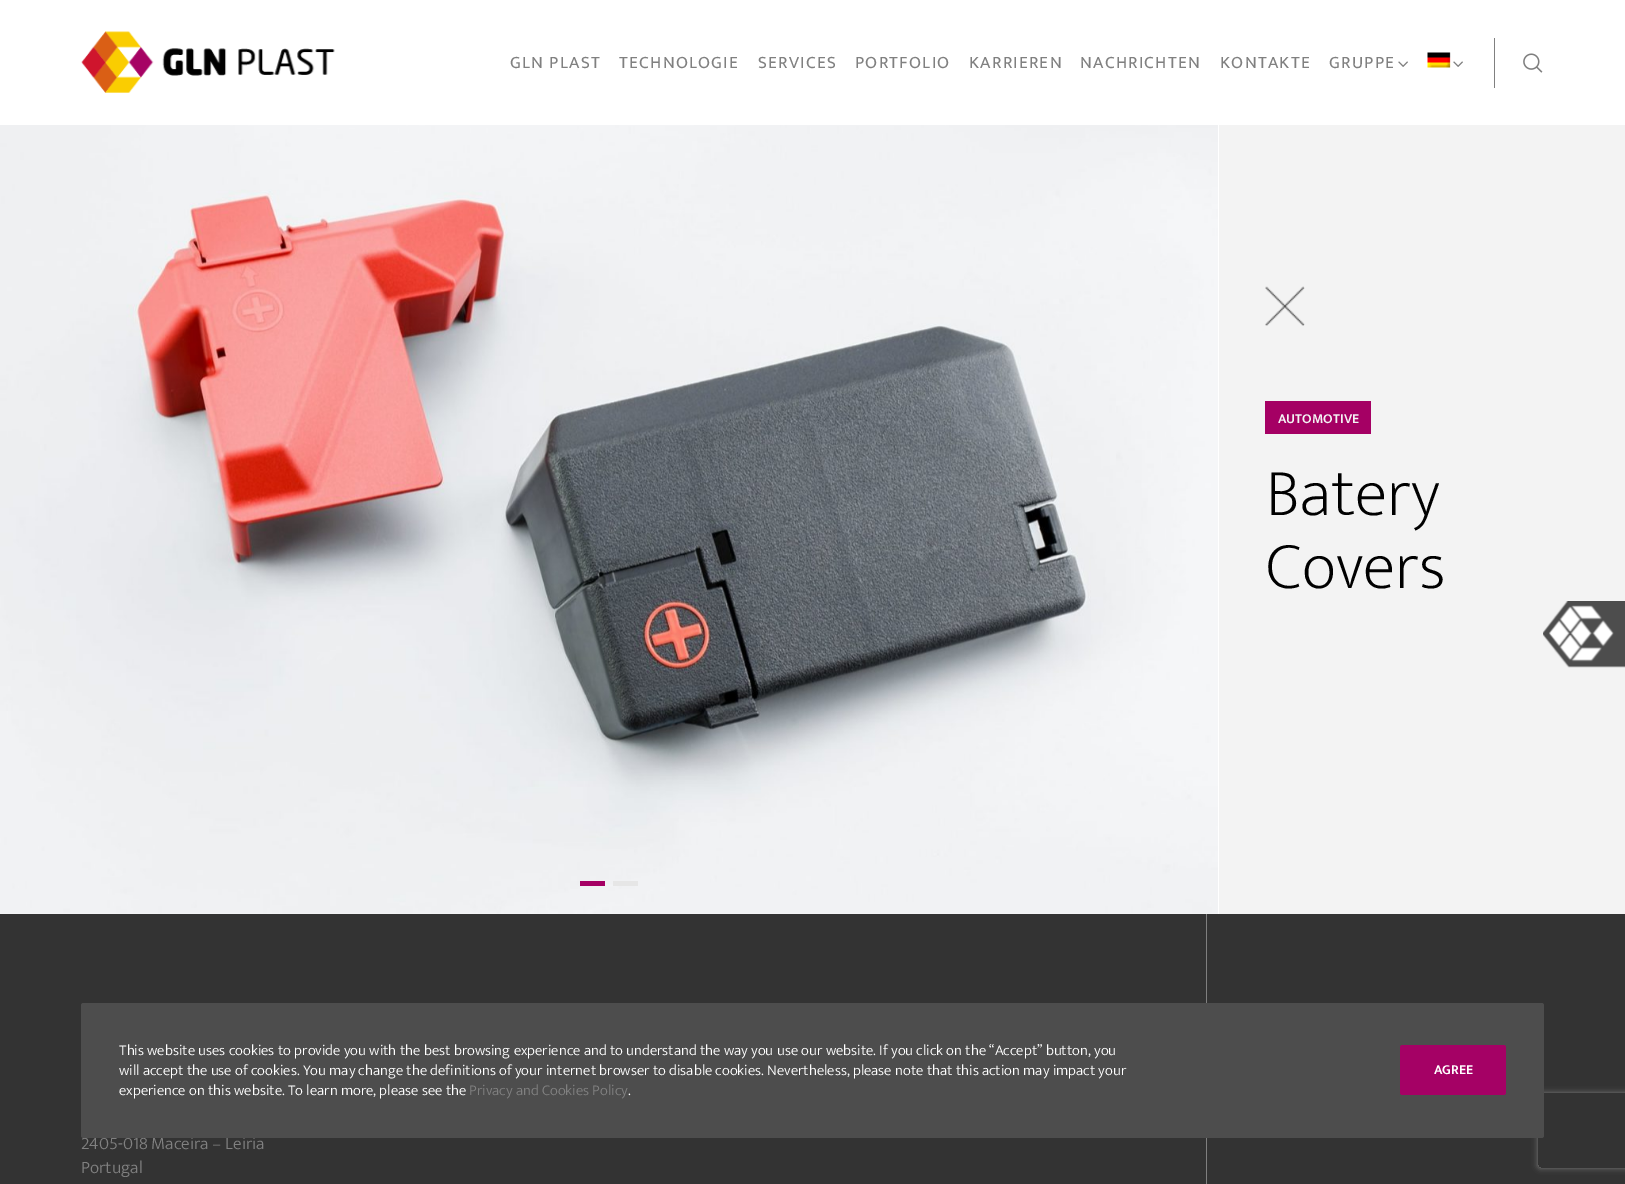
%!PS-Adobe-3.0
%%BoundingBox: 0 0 1625 1184
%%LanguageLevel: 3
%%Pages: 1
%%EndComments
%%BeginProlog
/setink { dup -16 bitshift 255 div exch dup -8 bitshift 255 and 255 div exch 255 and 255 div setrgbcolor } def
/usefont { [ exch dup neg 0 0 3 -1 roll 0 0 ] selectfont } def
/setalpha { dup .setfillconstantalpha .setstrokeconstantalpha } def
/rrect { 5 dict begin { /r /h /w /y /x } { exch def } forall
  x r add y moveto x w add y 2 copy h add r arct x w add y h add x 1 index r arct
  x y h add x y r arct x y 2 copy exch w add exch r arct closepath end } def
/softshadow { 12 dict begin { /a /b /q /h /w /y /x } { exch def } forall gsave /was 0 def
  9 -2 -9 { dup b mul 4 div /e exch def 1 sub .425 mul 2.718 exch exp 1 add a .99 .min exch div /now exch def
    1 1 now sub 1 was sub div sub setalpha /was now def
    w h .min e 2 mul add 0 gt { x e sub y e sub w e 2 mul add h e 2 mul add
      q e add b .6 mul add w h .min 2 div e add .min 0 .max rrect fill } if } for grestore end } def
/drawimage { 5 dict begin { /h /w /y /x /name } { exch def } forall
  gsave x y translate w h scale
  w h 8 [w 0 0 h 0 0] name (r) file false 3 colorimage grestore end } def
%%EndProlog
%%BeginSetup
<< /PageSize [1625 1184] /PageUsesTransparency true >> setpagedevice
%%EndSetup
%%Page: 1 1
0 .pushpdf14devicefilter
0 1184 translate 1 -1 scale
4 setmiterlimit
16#333333 setink
0 0 1625 1184 rectfill
16#FFFFFF setink
0 0 1625 125 rectfill
(img1.raw) 81 31 254 62 drawimage
/MuktaVaani-Regular 17.5 usefont
16#808080 setink
510 68 moveto 1.25 0 (GLN PLAST) ashow
619 68 moveto 1.25 0 (TECHNOLOGIE) ashow
758 68 moveto 1.25 0 (SERVICES) ashow
855 68 moveto 1.25 0 (PORTFOLIO) ashow
969 68 moveto 1.25 0 (KARRIEREN) ashow
1080 68 moveto 1.25 0 (NACHRICHTEN) ashow
1220 68 moveto 1.25 0 (KONTAKTE) ashow
1329 68 moveto 1.25 0 (GRUPPE) ashow
(img2.raw) 1398 61 10 6 drawimage
(img3.raw) 1427 52 24 16 drawimage
(img2.raw) 1453 61 10 6 drawimage
1494 38 1 50 rectfill
(img4.raw) 1523 53 20 20 drawimage
16#F3F3F3 setink
1219 125 406 789 rectfill
16#FFFFFF setink
0 125 1219 789 rectfill
(img5.raw) 0 125 1218 789 drawimage
16#A50064 setink
580 881 25 5 rectfill
16#E6E6E6 setink
613 881 25 5 rectfill
(img6.raw) 1265 286 40 40 drawimage
16#A50064 setink
1265 401 106 33 rectfill
/MuktaVaani-SemiBold 13.75 usefont
16#F3F3F3 setink
1278 423 moveto (AUTOMOTIVE) show
/MuktaVaani-ExtraLight 67.5 usefont
16#000000 setink
1266 515 moveto (Batery) show
1266 588 moveto (Covers) show
/MuktaVaani-Light 17.5 usefont
16#808080 setink
81 1149 moveto (2405-018 Maceira – Leiria) show
81 1173 moveto (Portugal) show
1206 914 1 270 rectfill
(img7.raw) 1543 601 82 67 drawimage
gsave
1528 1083 moveto 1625 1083 lineto 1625 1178 lineto 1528 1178 lineto closepath 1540.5 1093 moveto 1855.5 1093 lineto 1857 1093 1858 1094 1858 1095.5 curveto 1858 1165.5 lineto 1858 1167 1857 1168 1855.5 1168 curveto 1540.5 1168 lineto 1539 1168 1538 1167 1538 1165.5 curveto 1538 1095.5 lineto 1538 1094 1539 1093 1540.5 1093 curveto closepath eoclip newpath
1538 1093 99 75 2.5 3 1 softshadow
grestore
16#4D4D4D setink
81 1003 1463 135 2.5 rrect fill
/MuktaVaani-Light 15 usefont
16#FFFFFF setink
[
    [(This website uses cookies to provide you with the best browsing experience and to understand the way you use our website. If you click on the “Accept” button, you) 119 1055]
    [(will accept the use of cookies. You may change the definitions of your internet browser to disable cookies. Nevertheless, please note that this action may impact your) 119 1075]
    [(experience on this website. To learn more, please see the) 119 1095]
] { aload pop moveto show } forall
16#808080 setink
469 1095 moveto (Privacy and Cookies Policy) show
16#FFFFFF setink
628 1095 moveto (.) show
16#A50165 setink
1400 1045 106 50 2.5 rrect fill
/MuktaVaani-SemiBold 13.75 usefont
16#FFFFFF setink
1434 1074 moveto (AGREE) show
.poppdf14devicefilter showpage
%%EOF
